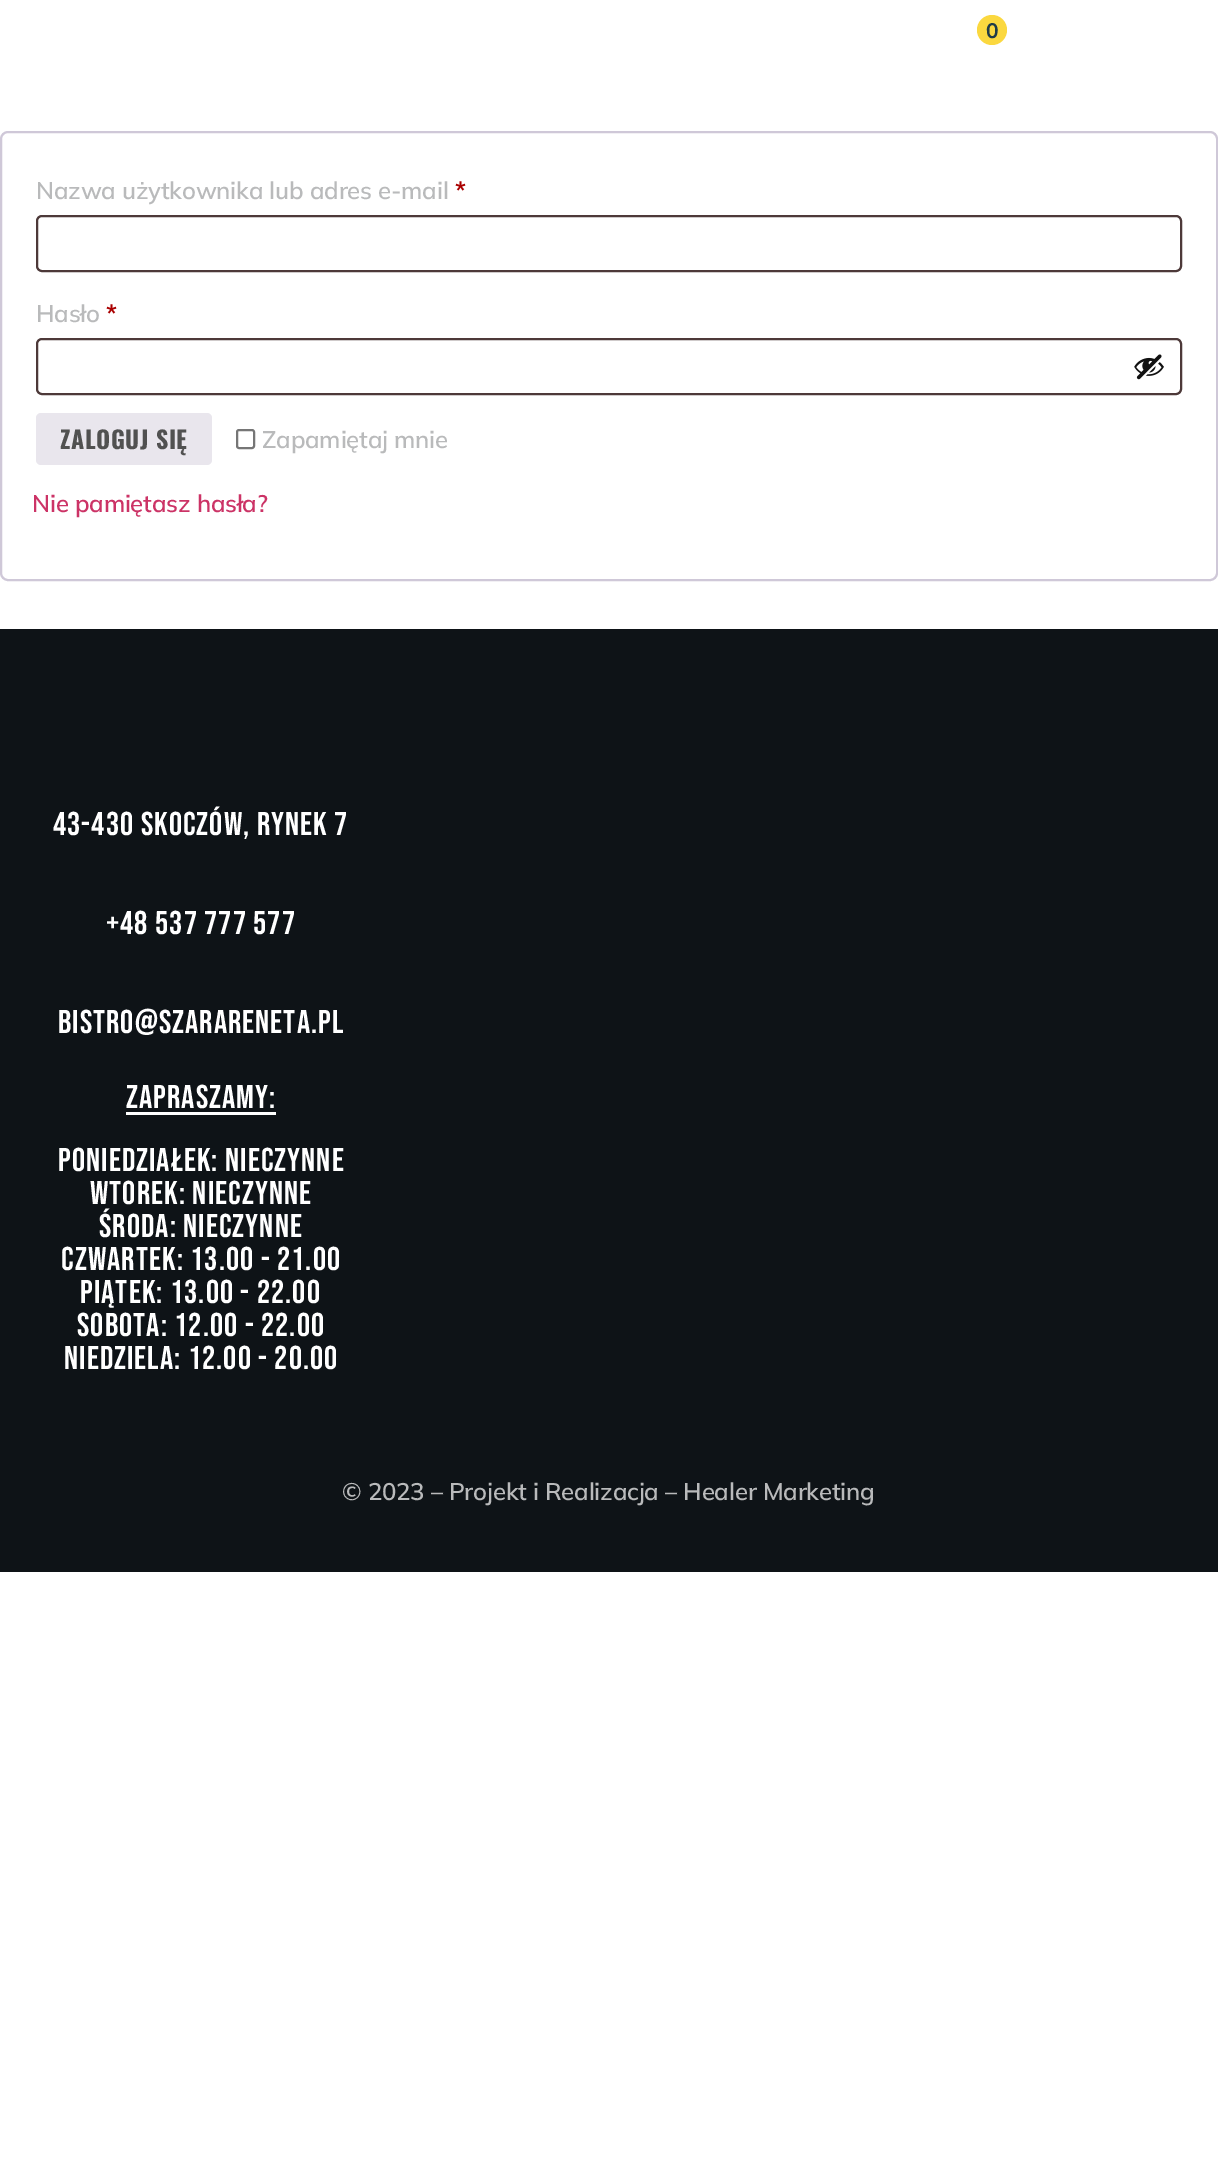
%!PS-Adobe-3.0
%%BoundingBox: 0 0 1218 2176
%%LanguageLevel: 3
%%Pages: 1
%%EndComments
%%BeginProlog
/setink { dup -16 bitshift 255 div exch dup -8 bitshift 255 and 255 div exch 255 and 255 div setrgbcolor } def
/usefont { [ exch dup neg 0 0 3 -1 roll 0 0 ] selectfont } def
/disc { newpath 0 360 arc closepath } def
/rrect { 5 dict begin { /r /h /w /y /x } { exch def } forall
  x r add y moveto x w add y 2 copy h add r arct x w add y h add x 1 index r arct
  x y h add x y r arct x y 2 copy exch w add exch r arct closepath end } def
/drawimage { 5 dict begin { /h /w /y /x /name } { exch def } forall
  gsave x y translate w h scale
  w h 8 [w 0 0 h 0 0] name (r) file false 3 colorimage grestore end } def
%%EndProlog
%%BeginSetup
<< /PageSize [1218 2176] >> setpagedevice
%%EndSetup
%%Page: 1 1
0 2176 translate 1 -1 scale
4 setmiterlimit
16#FFFFFF setink
0 0 1218 2176 rectfill
16#FBD83F setink
992 30 15 disc fill
/Mulish-Bold 21 usefont
16#203B48 setink
986 38 moveto -0.2 0 (0) ashow
16#CFC8D8 setink
2 setlinewidth
1 132 1216 448 7 rrect stroke
/Mulish-SemiBold 24 usefont
16#B9BABB setink
36 199 moveto -0.2 0 (Nazwa użytkownika lub adres e-mail) ashow
/Mulish-Bold 24 usefont
16#AA0000 setink
455 199 moveto -0.2 0 (*) ashow
16#4D3939 setink
37 216 1144 55 5 rrect stroke
/Mulish-SemiBold 24 usefont
16#B9BABB setink
36 322 moveto -0.2 0 (Hasło) ashow
/Mulish-Bold 24 usefont
16#AA0000 setink
106 322 moveto -0.2 0 (*) ashow
16#4D3939 setink
37 339 1144 55 5 rrect stroke
(img1.raw) 1134 354 30 26 drawimage
16#E9E6ED setink
36 413 176 52 5 rrect fill
/Oswald-Bold 24 usefont
16#515151 setink
60 449 moveto 0.6 0 (ZALOGUJ SIĘ) ashow
16#767676 setink
237 430 17 18 2 rrect stroke
/Mulish-SemiBold 24 usefont
16#B9BABB setink
262 448 moveto -0.2 0 (Zapamiętaj mnie) ashow
16#CC3366 setink
32 512 moveto -0.2 0 (Nie pamiętasz hasła?) ashow
16#0E1317 setink
0 629 1218 943 rectfill
/BebasNeue-Regular 33 usefont
16#FFFFFF setink
53 835 moveto 1.05 0 (43-430 skoczów, rynek 7) ashow
106 934 moveto 1.05 0 (+48 537 777 577) ashow
58 1033 moveto 1.05 0 (bistro@szarareneta.pl) ashow
126 1108 moveto 1.05 0 (ZAPRASZAMY:) ashow
126 1112 150 3 rectfill
58 1171 moveto 1.05 0 (PONIEDZIAŁEK: NIECZYNNE) ashow
90 1204 moveto 1.05 0 (WTOREK: NIECZYNNE) ashow
99 1237 moveto 1.05 0 (ŚRODA: NIECZYNNE) ashow
61 1270 moveto 1.05 0 (CZWARTEK: 13.00 - 21.00) ashow
80 1303 moveto 1.05 0 (PIĄTEK: 13.00 - 22.00) ashow
77 1336 moveto 1.05 0 (SOBOTA: 12.00 - 22.00) ashow
64 1369 moveto 1.05 0 (NIEDZIELA: 12.00 - 20.00) ashow
/Mulish-SemiBold 24 usefont
16#B9BABB setink
342 1500 moveto -0.2 0 (© 2023 – Projekt i Realizacja – Healer Marketing) ashow
showpage
%%EOF
